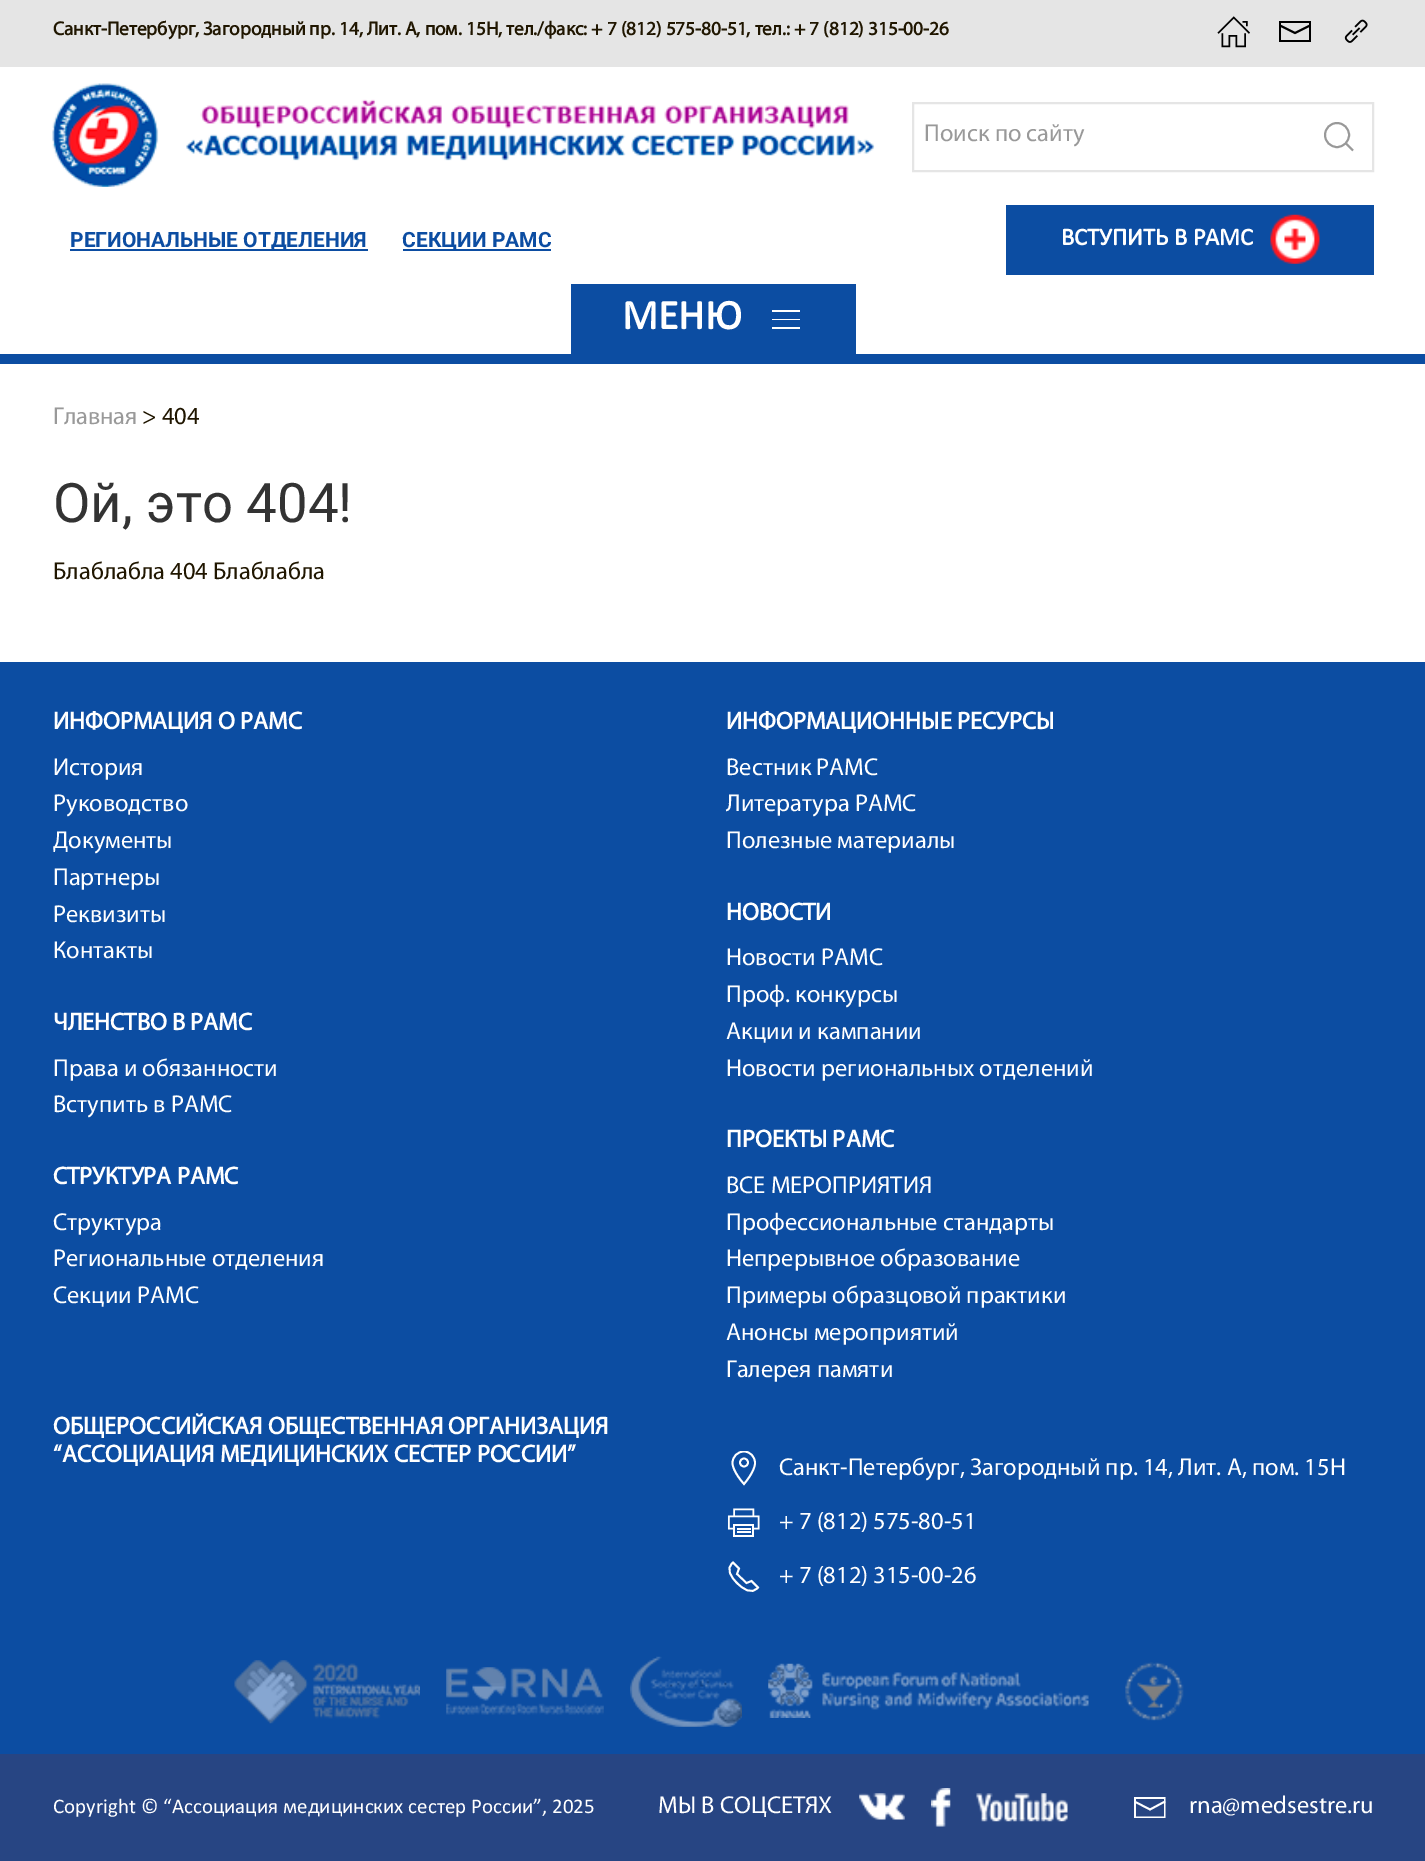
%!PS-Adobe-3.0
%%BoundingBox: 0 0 1425 1861
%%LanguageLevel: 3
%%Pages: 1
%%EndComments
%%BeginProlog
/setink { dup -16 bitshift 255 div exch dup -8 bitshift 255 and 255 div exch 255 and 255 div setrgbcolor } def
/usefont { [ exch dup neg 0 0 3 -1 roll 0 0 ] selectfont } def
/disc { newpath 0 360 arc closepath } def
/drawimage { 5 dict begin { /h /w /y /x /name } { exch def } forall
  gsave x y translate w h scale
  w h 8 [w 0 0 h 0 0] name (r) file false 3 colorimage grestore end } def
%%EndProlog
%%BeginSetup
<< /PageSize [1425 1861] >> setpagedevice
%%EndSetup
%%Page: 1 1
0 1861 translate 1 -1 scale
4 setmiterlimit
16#FFFFFF setink
0 0 1425 1861 rectfill
16#0C4DA2 setink
0 354 1425 10 rectfill
16#E5E5E5 setink
0 0 1425 67 rectfill
/Myriad-Bold 19.25 usefont
16#201600 setink
53 35 moveto (Санкт-Петербург, Загородный пр. 14, Лит. А, пом. 15Н, тел./факс: + 7 \(812\) 575-80-51, тел.: + 7 \(812\) 315-00-26) show
(img1.raw) 1217 16 33 32 drawimage
16#000000 setink
1.8 setlinewidth
1280 25.5 moveto 1295 33 lineto 1310 25.5 lineto stroke
1279 21 moveto 1279 42 lineto 1311 42 lineto 1311 21 lineto closepath 1309 40 moveto 1281 40 lineto 1281 23 lineto 1309 23 lineto closepath fill
(img2.raw) 1344 19 24 24 drawimage
(img3.raw) 52 83 823 104 drawimage
16#E5E5E5 setink
2 setlinewidth
913 103 460 68 rectstroke
/Myriad-Regular 24.5 usefont
16#999999 setink
924 141 moveto (Поиск по сайту) show
1.9 setlinewidth
1337 135 12 disc stroke
1346 143.5 moveto 1353 150.5 lineto closepath stroke
16#0C4DA2 setink
70 249 298 2 rectfill
/Roboto-Bold 21 usefont
70 247 moveto (РЕГИОНАЛЬНЫЕ ОТДЕЛЕНИЯ) show
403 249 148 2 rectfill
402 247 moveto (CЕКЦИИ РАМС) show
1006 205 368 70 rectfill
/Calibri-Bold 24.5 usefont
16#FFFFFF setink
1061 245 moveto (ВСТУПИТЬ В РАМС) show
(img4.raw) 1270 214 50 50 drawimage
16#0C4DA2 setink
571 284 285 70 rectfill
/Calibri-Bold 42 usefont
16#FFFFFF setink
622 329 moveto (МЕНЮ) show
[
    [772 310 28 2 16#FFFFFF]
    [772 319 28 1 16#FFFFFF]
    [772 327 28 2 16#FFFFFF]
] { aload pop setink rectfill } forall
/Myriad-Regular 24.5 usefont
16#999999 setink
53 424 moveto (Главная) show
16#201600 setink
142 424 moveto (> 404) show
/Roboto-Regular 54.5 usefont
16#333333 setink
53 522 moveto (Ой, это 404!) show
/Myriad-Regular 24.5 usefont
16#201600 setink
53 579 moveto (Блаблабла 404 Блаблабла) show
16#0C4DA2 setink
0 662 1425 1092 rectfill
/Myriad-Bold 24.5 usefont
16#FFFFFF setink
53 729 moveto (ИНФОРМАЦИЯ О РАМС) show
/Myriad-Regular 24.5 usefont
[
    [(История) 53 775]
    [(Руководство) 53 811]
    [(Документы) 53 848]
    [(Партнеры) 53 885]
    [(Реквизиты) 53 922]
    [(Контакты) 53 958]
] { aload pop moveto show } forall
/Myriad-Bold 24.5 usefont
726 729 moveto (ИНФОРМАЦИОННЫЕ РЕСУРСЫ) show
/Myriad-Regular 24.5 usefont
[
    [(Вестник РАМС) 726 775]
    [(Литература РАМС) 726 811]
    [(Полезные материалы) 726 848]
] { aload pop moveto show } forall
/Myriad-Bold 24.5 usefont
53 1030 moveto (ЧЛЕНСТВО В РАМС) show
/Myriad-Regular 24.5 usefont
53 1076 moveto (Права и обязанности) show
53 1112 moveto (Вступить в РАМС) show
/Myriad-Bold 24.5 usefont
726 920 moveto (НОВОСТИ) show
/Myriad-Regular 24.5 usefont
[
    [(Новости РАМС) 726 965]
    [(Проф. конкурсы) 726 1002]
    [(Акции и кампании) 726 1039]
    [(Новости региональных отделений) 726 1076]
] { aload pop moveto show } forall
/Myriad-Bold 24.5 usefont
53 1184 moveto (СТРУКТУРА РАМС) show
/Myriad-Regular 24.5 usefont
[
    [(Структура) 53 1230]
    [(Региональные отделения) 53 1266]
    [(Cекции РАМС) 53 1303]
] { aload pop moveto show } forall
/Myriad-Bold 24.5 usefont
726 1147 moveto (ПРОЕКТЫ РАМС) show
/Myriad-Regular 24.5 usefont
[
    [(ВСЕ МЕРОПРИЯТИЯ) 726 1193]
    [(Профессиональные стандарты) 726 1230]
    [(Непрерывное образование) 726 1266]
    [(Примеры образцовой практики) 726 1303]
    [(Анонсы мероприятий) 726 1340]
    [(Галерея памяти) 726 1377]
] { aload pop moveto show } forall
/Myriad-Bold 24.5 usefont
53 1434 moveto (ОБЩЕРОССИЙСКАЯ ОБЩЕСТВЕННАЯ ОРГАНИЗАЦИЯ) show
53 1462 moveto (“АССОЦИАЦИЯ МЕДИЦИНСКИХ СЕСТЕР РОССИИ”) show
gsave
726 1451 35 35 rectclip
1.8 setlinewidth
744 1451.5 moveto 737.5 1451.5 732.5 1456.5 732.5 1463 curveto 732.5 1471.5 744 1484 744 1484 curveto 744 1484 755 1471.5 755 1463 curveto 755 1456.5 750 1451.5 744 1451.5 curveto closepath stroke
grestore
1.8 setlinewidth
744 1462.5 4 disc stroke
/Myriad-Regular 24.5 usefont
779 1475 moveto (Санкт-Петербург, Загородный пр. 14, Лит. А, пом. 15Н) show
(img5.raw) 727 1508 33 29 drawimage
779 1529 moveto (+ 7 \(812\) 575-80-51) show
737 1583 moveto 742.5 1588.5 751.5 1595.5 758 1587.5 curveto 751.5 1581 lineto 746.5 1583 lineto 737 1574 lineto 739 1568.5 lineto 733 1562.5 lineto 725 1569 731.5 1577.5 737 1583 curveto stroke
779 1583 moveto (+ 7 \(812\) 315-00-26) show
(img6.raw) 234 1660 186 64 drawimage
(img7.raw) 446 1667 158 48 drawimage
(img8.raw) 630 1656 112 71 drawimage
(img9.raw) 768 1663 321 55 drawimage
(img10.raw) 1125 1662 59 59 drawimage
16#274583 setink
0 1754 1425 107 rectfill
/Calibri-Regular 21 usefont
16#FFFFFF setink
53 1813 moveto (Copyright © “Ассоциация медицинских сестер России”, 2025) show
/Myriad-Regular 24.5 usefont
658 1813 moveto (МЫ В СОЦСЕТЯХ) show
(img11.raw) 859 1793 46 27 drawimage
(img12.raw) 931 1788 20 39 drawimage
(img13.raw) 976 1793 92 29 drawimage
1134.5 1801.5 moveto 1150 1809.5 lineto 1165 1801.5 lineto stroke
1134 1797 moveto 1134 1818 lineto 1165.5 1818 lineto 1165.5 1797 lineto closepath 1164 1816.5 moveto 1136 1816.5 lineto 1136 1799 lineto 1164 1799 lineto closepath fill
1189 1813 moveto (rna@medsestre.ru) show
showpage
%%EOF
